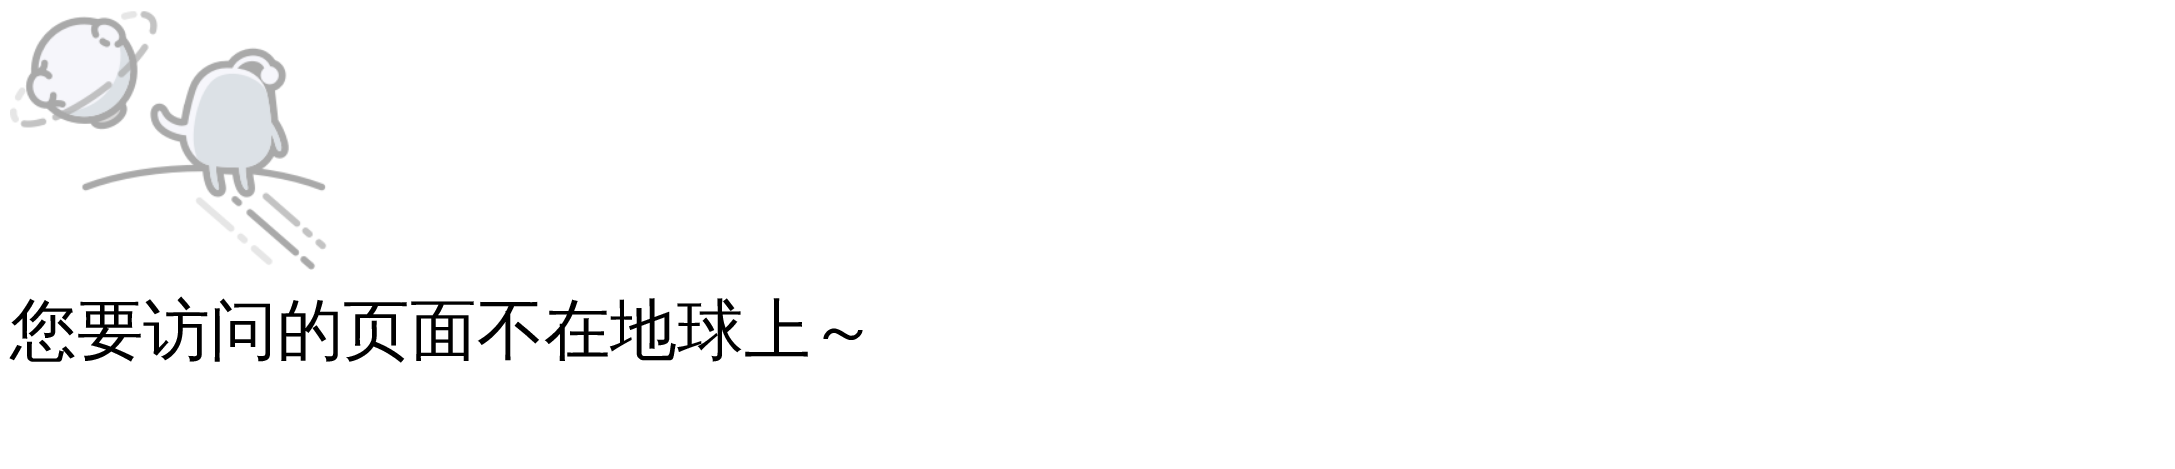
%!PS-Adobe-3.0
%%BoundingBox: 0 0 2175 469
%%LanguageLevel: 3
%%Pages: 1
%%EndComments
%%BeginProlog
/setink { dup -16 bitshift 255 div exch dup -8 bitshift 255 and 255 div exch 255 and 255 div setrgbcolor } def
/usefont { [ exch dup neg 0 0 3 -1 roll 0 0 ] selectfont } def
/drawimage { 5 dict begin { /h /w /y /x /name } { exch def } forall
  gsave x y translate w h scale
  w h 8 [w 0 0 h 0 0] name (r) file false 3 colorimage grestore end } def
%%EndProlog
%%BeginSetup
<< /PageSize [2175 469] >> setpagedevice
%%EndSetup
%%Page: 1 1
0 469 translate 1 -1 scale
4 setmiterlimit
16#FFFFFF setink
0 0 2175 469 rectfill
(img1.raw) 10 11 317 259 drawimage
/WenQuanYiZenHei-Medium 66.7 usefont
16#000000 setink
10 353 moveto (您要访问的页面不在地球上～) show
showpage
%%EOF
